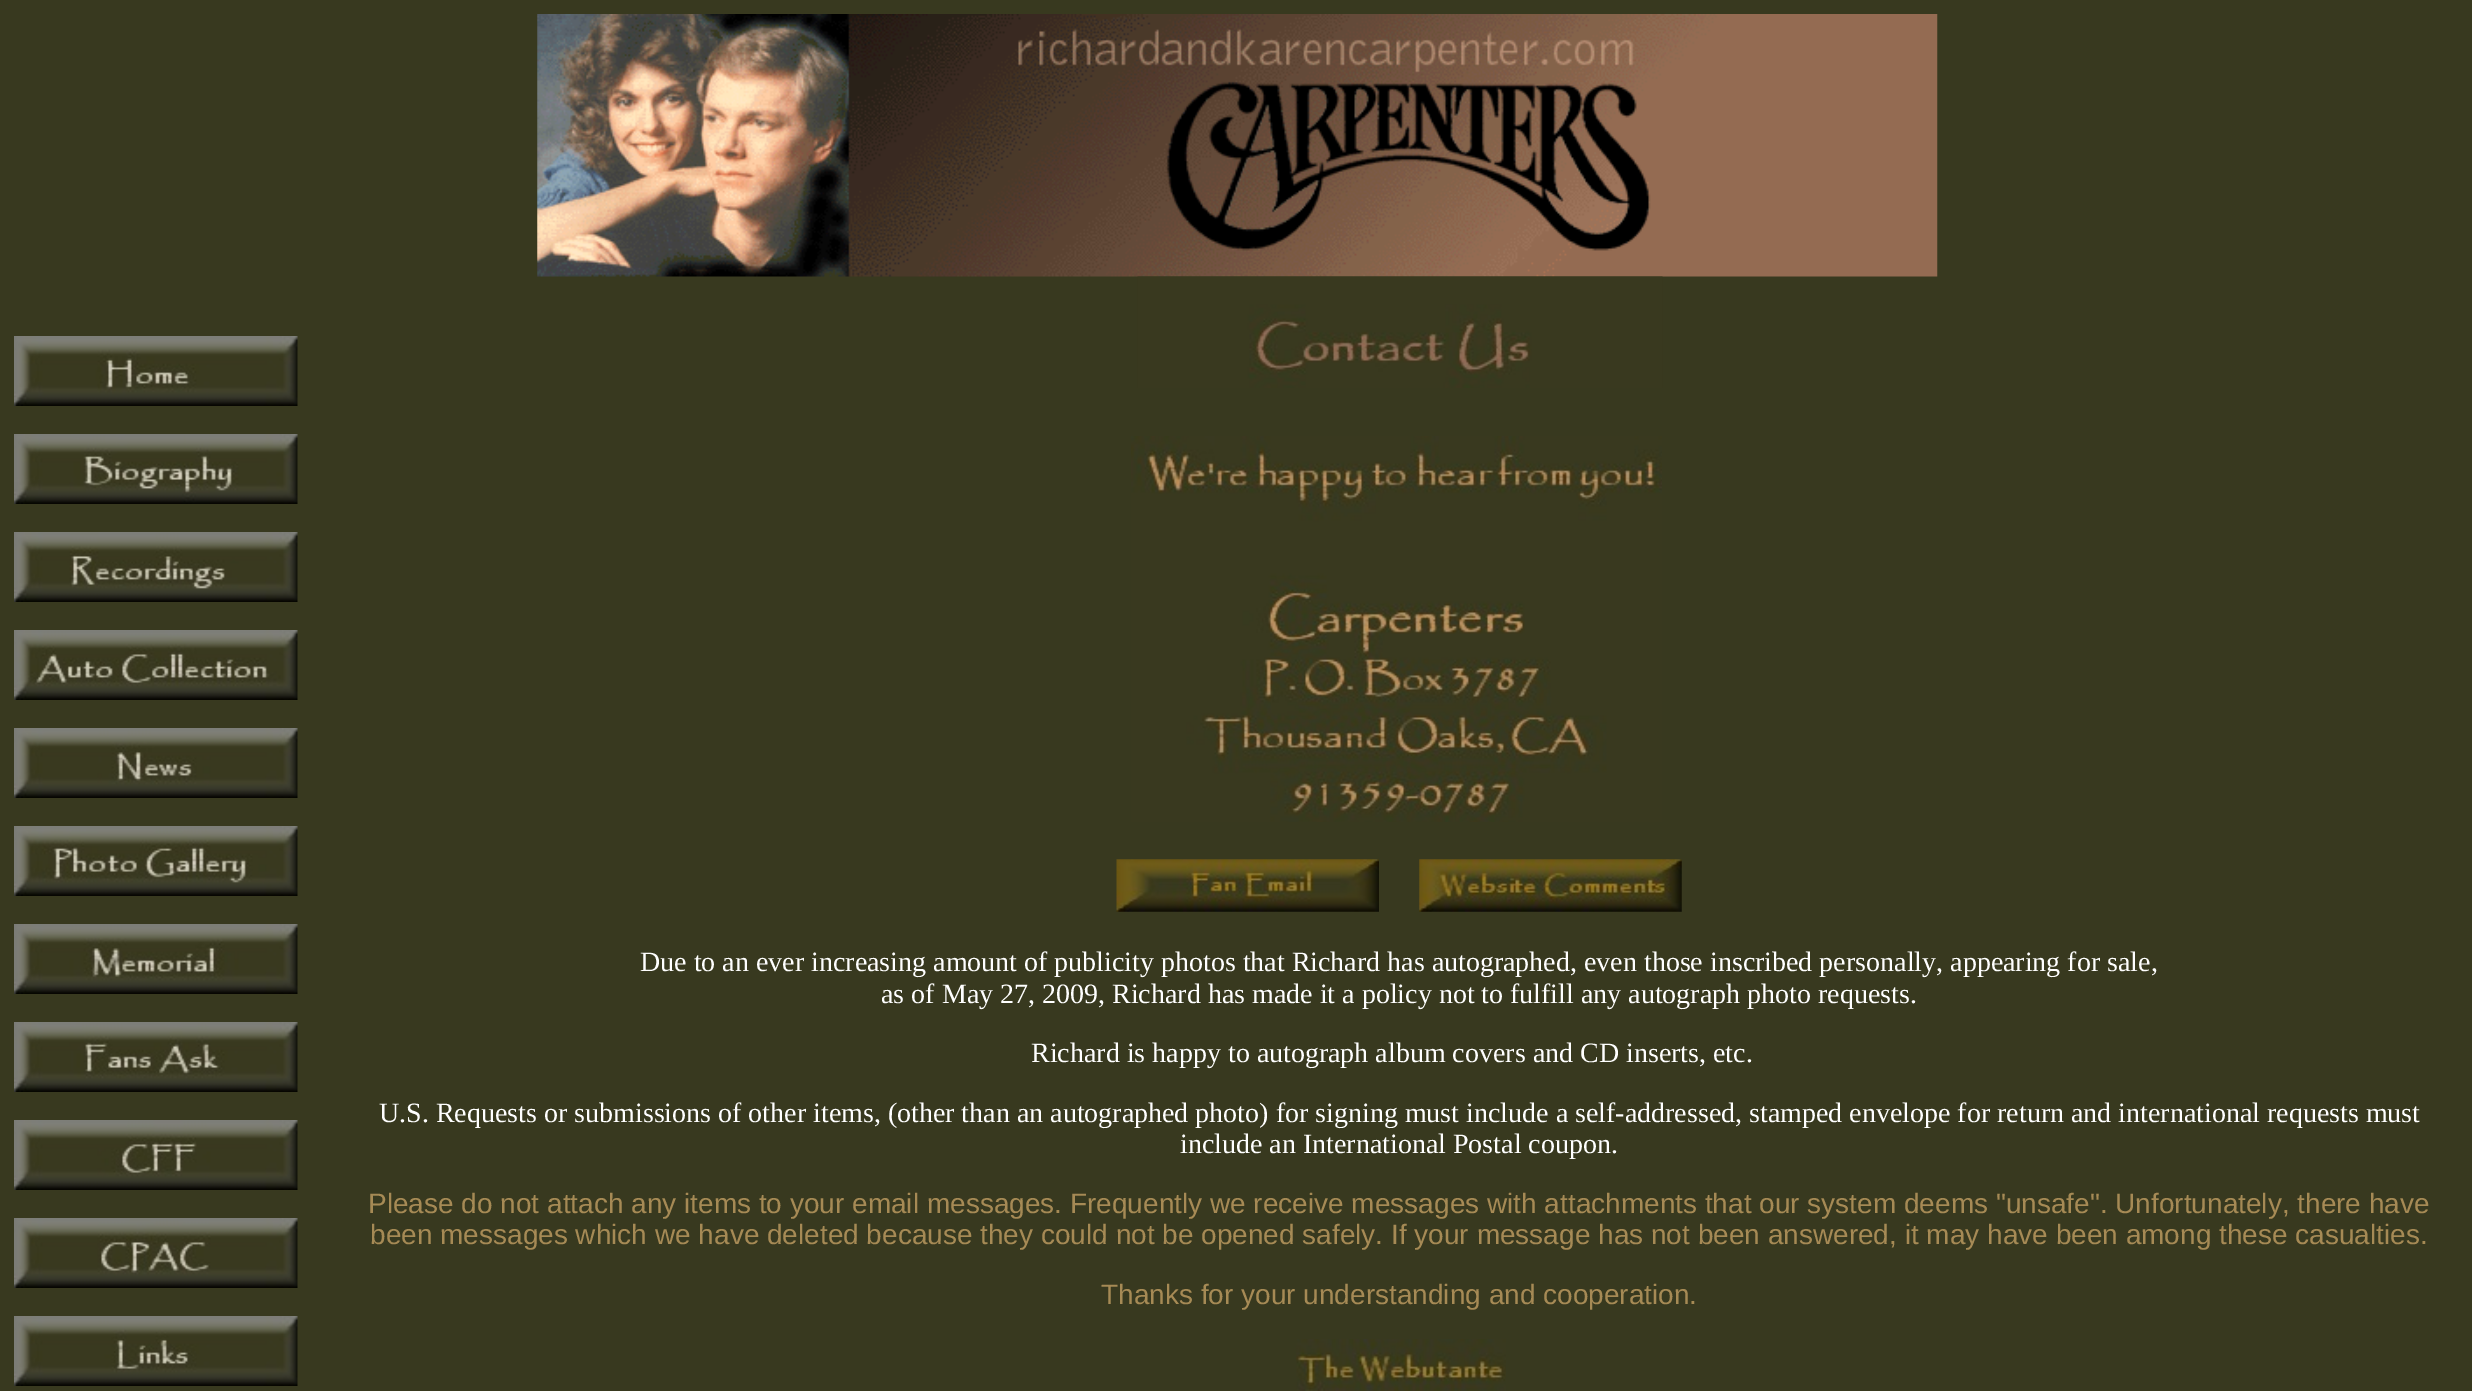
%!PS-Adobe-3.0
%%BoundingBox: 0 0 2472 1391
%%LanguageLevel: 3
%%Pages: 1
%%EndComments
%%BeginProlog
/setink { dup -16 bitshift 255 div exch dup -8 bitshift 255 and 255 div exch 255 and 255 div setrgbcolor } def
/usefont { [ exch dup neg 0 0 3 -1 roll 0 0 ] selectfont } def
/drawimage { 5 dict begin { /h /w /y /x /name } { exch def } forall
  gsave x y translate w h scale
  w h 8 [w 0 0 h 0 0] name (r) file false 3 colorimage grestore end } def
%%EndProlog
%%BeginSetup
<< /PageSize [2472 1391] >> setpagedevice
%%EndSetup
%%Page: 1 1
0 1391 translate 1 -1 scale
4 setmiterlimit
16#38391F setink
0 0 2472 1391 rectfill
(img1.raw) 537 14 1401 263 drawimage
(img2.raw) 14 336 284 70 drawimage
(img3.raw) 14 434 284 70 drawimage
(img4.raw) 14 532 284 70 drawimage
(img5.raw) 14 630 284 70 drawimage
(img6.raw) 14 728 284 70 drawimage
(img7.raw) 14 826 284 70 drawimage
(img8.raw) 14 924 284 70 drawimage
(img9.raw) 14 1022 284 70 drawimage
(img10.raw) 14 1120 284 70 drawimage
(img11.raw) 14 1218 284 70 drawimage
(img12.raw) 14 1316 284 70 drawimage
(img13.raw) 1137 276 526 112 drawimage
(img14.raw) 1131 436 531 386 drawimage
(img15.raw) 1116 859 263 53 drawimage
(img16.raw) 1419 859 263 53 drawimage
/LiberationSerif-Regular 28 usefont
16#FFFFFF setink
[
    [(Due to an ever increasing amount of publicity photos that Richard has autographed, even those inscribed personally, appearing for sale,) 640 971]
    [(as of May 27, 2009, Richard has made it a policy not to fulfill any autograph photo requests.) 881 1003]
    [(Richard is happy to autograph album covers and CD inserts, etc.) 1031 1062]
    [(U.S. Requests or submissions of other items, \(other than an autographed photo\) for signing must include a self-addressed, stamped envelope for return and international requests must) 379 1122]
    [(include an International Postal coupon.) 1180 1153]
] { aload pop moveto show } forall
/LiberationSans-Regular 28 usefont
16#A68A55 setink
[
    [(Please do not attach any items to your email messages. Frequently we receive messages with attachments that our system deems "unsafe". Unfortunately, there have) 368 1213]
    [(been messages which we have deleted because they could not be opened safely. If your message has not been answered, it may have been among these casualties.) 370 1244]
    [(Thanks for your understanding and cooperation.) 1101 1304]
] { aload pop moveto show } forall
(img17.raw) 1296 1339 210 52 drawimage
showpage
%%EOF
